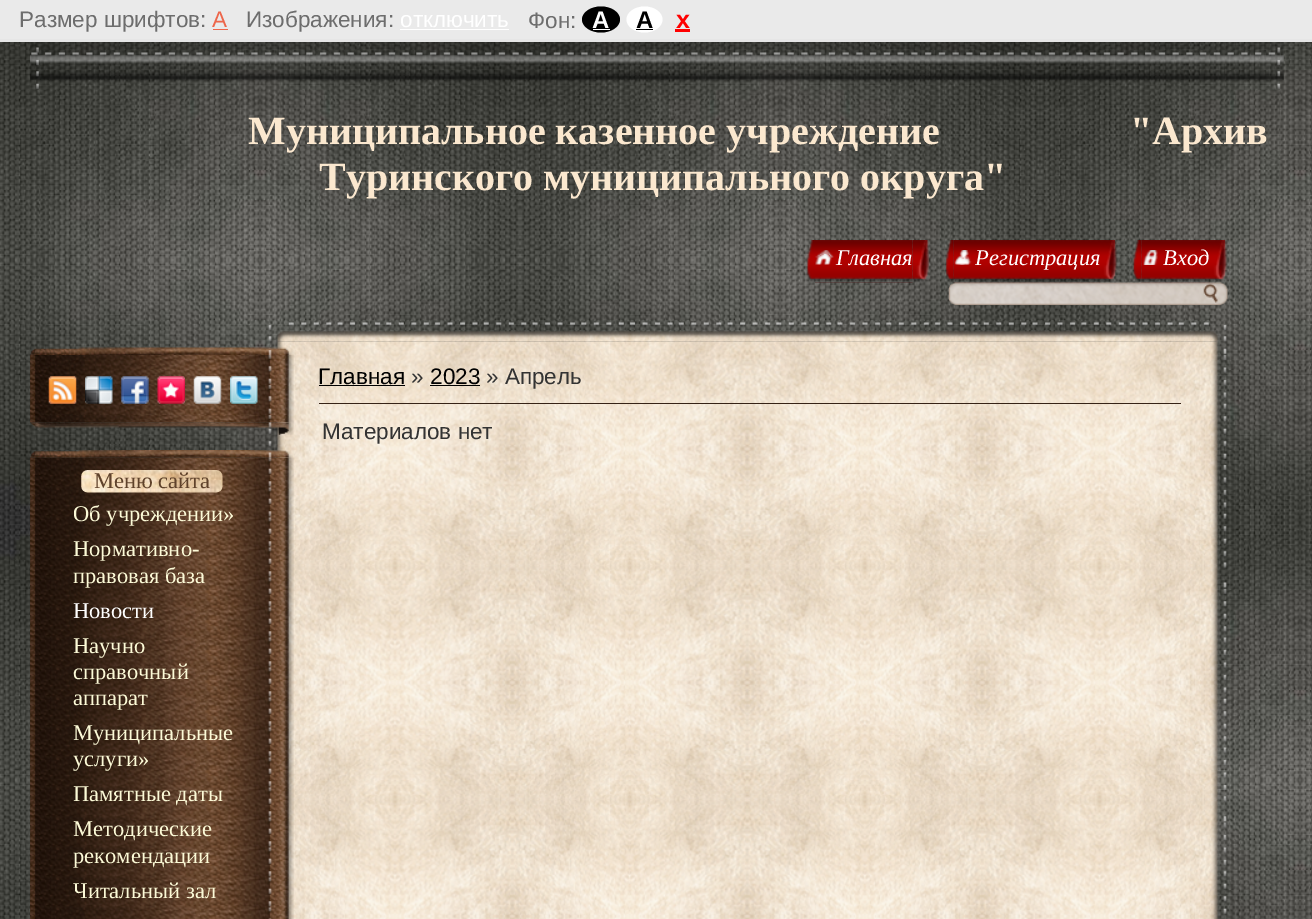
%!PS-Adobe-3.0
%%BoundingBox: 0 0 1312 919
%%LanguageLevel: 3
%%Pages: 1
%%EndComments
%%BeginProlog
/setink { dup -16 bitshift 255 div exch dup -8 bitshift 255 and 255 div exch 255 and 255 div setrgbcolor } def
/usefont { [ exch dup neg 0 0 3 -1 roll 0 0 ] selectfont } def
/drawimage { 5 dict begin { /h /w /y /x /name } { exch def } forall
  gsave x y translate w h scale
  w h 8 [w 0 0 h 0 0] name (r) file false 3 colorimage grestore end } def
%%EndProlog
%%BeginSetup
<< /PageSize [1312 919] >> setpagedevice
%%EndSetup
%%Page: 1 1
0 919 translate 1 -1 scale
4 setmiterlimit
16#FFFFFF setink
0 0 1312 919 rectfill
(img1.raw) 0 42 1312 877 drawimage
16#EAEAEA setink
0 0 1312 39 rectfill
16#E6E6E6 setink
0 39 1312 3 rectfill
/LiberationSans-Regular 22.5 usefont
16#6D6D6D setink
19 27 moveto (Размер шрифтов:) show
16#ED664B setink
212 27 moveto (A) show
213 29 15 1 rectfill
16#6D6D6D setink
246 27 moveto (Изображения:) show
16#FFFFFF setink
400 27 moveto (отключить) show
400 29 109 1 rectfill
16#6D6D6D setink
528 28 moveto (Фон:) show
16#000000 setink
601 6.5 moveto 611.5 6.5 620 12.5 620 19.5 curveto 620 26.5 611.5 32.5 601 32.5 curveto 590.5 32.5 582 26.5 582 19.5 curveto 582 12.5 590.5 6.5 601 6.5 curveto closepath fill
/LiberationSans-Bold 24 usefont
16#FFFFFF setink
592 28 moveto (A) show
593 29 17 1 rectfill
644.5 6.5 moveto 654.5 6.5 662.5 12.5 662.5 19.5 curveto 662.5 26.5 654.5 32.5 644.5 32.5 curveto 634.5 32.5 626.5 26.5 626.5 19.5 curveto 626.5 12.5 634.5 6.5 644.5 6.5 curveto closepath fill
16#000000 setink
636 28 moveto (A) show
636 29 17 1 rectfill
/LiberationSans-Bold 25 usefont
16#FF0000 setink
676 28 moveto (x) show
675 29 15 3 rectfill
(img2.raw) 30 42 1254 47 drawimage
/LiberationSerif-Bold 40 usefont
16#FBE8CF setink
248 144 moveto (Муниципальное казенное учреждение                   "Архив) show
319 190 moveto (Туринского муниципального округа") show
(img3.raw) 806 240 9 42 drawimage
(img4.raw) 815 240 98 43 drawimage
(img5.raw) 815 250 19 15 drawimage
/LiberationSerif-Italic 22.5 usefont
16#FFFFFF setink
836 265 moveto (Главная) show
(img6.raw) 912 240 18 42 drawimage
(img7.raw) 945 240 9 42 drawimage
(img8.raw) 953 240 147 43 drawimage
(img9.raw) 954 250 18 15 drawimage
975 265 moveto (Регистрация) show
(img10.raw) 1100 240 17 42 drawimage
(img11.raw) 1133 240 9 42 drawimage
(img12.raw) 1141 240 69 43 drawimage
(img13.raw) 1143 250 15 15 drawimage
1163 265 moveto (Вход) show
(img14.raw) 1210 240 17 42 drawimage
(img15.raw) 948 282 280 23 drawimage
(img17.raw) 268 341 959 578 drawimage
(img16.raw) 268 322 959 20 drawimage
/LiberationSans-Regular 22.5 usefont
16#000000 setink
318 384 moveto (Главная) show
319 385 86 1 rectfill
16#333333 setink
411 384 moveto (») show
16#000000 setink
430 384 moveto (2023) show
430 385 50 1 rectfill
16#333333 setink
486 384 moveto (» Апрель) show
16#362316 setink
319 403 862 1 rectfill
16#333333 setink
322 439 moveto (Материалов нет) show
(img18.raw) 30 347 264 8 drawimage
(img19.raw) 30 355 264 68 drawimage
(img20.raw) 48 376 29 28 drawimage
(img21.raw) 85 376 28 28 drawimage
(img22.raw) 121 376 28 28 drawimage
(img23.raw) 157 376 28 28 drawimage
(img24.raw) 193 376 29 28 drawimage
(img25.raw) 230 376 28 28 drawimage
(img26.raw) 31 422 263 13 drawimage
(img28.raw) 30 457 264 462 drawimage
(img27.raw) 30 450 263 8 drawimage
(img29.raw) 81 470 142 23 drawimage
/LiberationSerif-Regular 22.5 usefont
16#5F422B setink
94 488 moveto (Меню сайта) show
16#FCFAD7 setink
[
    [(Об учреждении») 73 521]
    [(Нормативно-) 73 556]
    [(правовая база) 73 583]
] { aload pop moveto show } forall
16#FFFFFF setink
73 618 moveto (Новости) show
16#FCFAD7 setink
[
    [(Научно) 73 653]
    [(справочный) 73 679]
    [(аппарат) 73 705]
    [(Муниципальные) 73 740]
    [(услуги») 73 766]
    [(Памятные даты) 73 801]
    [(Методические) 73 836]
    [(рекомендации) 73 863]
    [(Читальный зал) 73 898]
] { aload pop moveto show } forall
showpage
%%EOF
